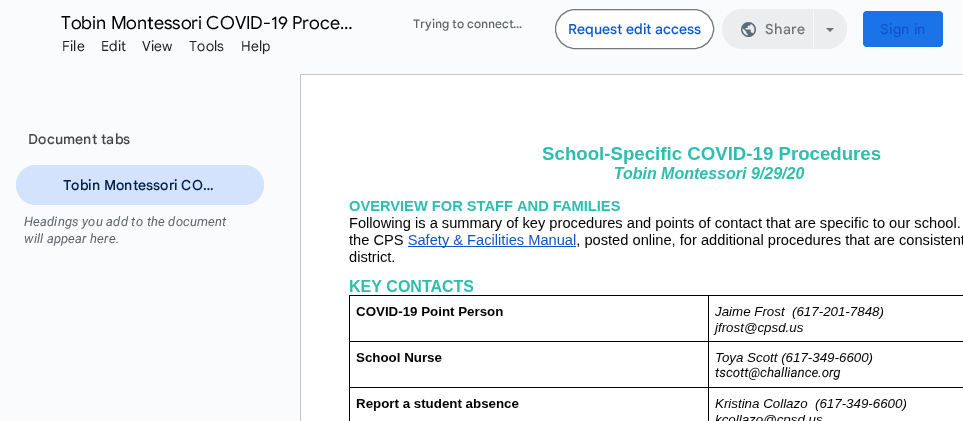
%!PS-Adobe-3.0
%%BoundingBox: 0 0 963 421
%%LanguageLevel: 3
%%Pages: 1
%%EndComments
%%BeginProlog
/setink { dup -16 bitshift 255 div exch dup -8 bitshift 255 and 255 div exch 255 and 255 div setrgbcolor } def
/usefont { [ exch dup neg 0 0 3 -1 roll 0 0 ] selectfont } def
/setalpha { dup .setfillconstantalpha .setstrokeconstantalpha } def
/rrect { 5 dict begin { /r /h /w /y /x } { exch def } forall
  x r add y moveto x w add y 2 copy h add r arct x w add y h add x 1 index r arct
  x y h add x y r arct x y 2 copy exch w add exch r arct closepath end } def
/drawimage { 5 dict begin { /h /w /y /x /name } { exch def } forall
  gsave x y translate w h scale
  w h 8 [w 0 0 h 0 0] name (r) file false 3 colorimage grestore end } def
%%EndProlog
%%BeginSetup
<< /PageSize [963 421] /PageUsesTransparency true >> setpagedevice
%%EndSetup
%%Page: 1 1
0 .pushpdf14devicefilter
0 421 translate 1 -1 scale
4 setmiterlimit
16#F9FBFD setink
0 0 963 421 rectfill
/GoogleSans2-Regular 18 usefont
16#000000 setink
61 29 moveto (Tobin Montessori COVID-19 Proce…) show
/GoogleSans-Medium 12 usefont
16#5F6368 setink
413 28 moveto (Trying to connect…) show
16#FFFFFF setink
555.5 9.5 158 39 19.5 rrect gsave fill grestore
16#747775 setink
stroke
/GoogleSans-Medium 14 usefont
16#0B57D0 setink
568 34 moveto (Request edit access) show
16#ECEDEE setink
742 9 moveto 814 9 lineto 814 49 lineto 742 49 lineto 731 49 722 40 722 29 curveto 722 18 731 9 742 9 curveto closepath fill
(img1.raw) 741 22 15 15 drawimage
16#727373 setink
765 34 moveto 0.25 0 (Share) ashow
0.62 setalpha
16#E4E4E4 setink
813 9 moveto 827 9 lineto 838 9 847 18 847 29 curveto 847 40 838 49 827 49 curveto 813 49 lineto closepath fill
1 setalpha
16#F8F8F9 setink
814 10 moveto 813 9 lineto 813 49 lineto 814 48 lineto closepath fill
16#727373 setink
826 28 moveto 834 28 lineto 830 32 lineto closepath fill
16#1A73E8 setink
863 11 80 36 4 rrect fill
16#1155CC setink
880 34 moveto 0.25 0 (Sign in) ashow
/GoogleSans-Regular 14 usefont
16#202124 setink
62 51 moveto 0.2 0 (File) ashow
101 51 moveto 0.2 0 (Edit) ashow
142 51 moveto 0.2 0 (View) ashow
189 51 moveto 0.2 0 (Tools) ashow
241 51 moveto 0.2 0 (Help) ashow
/GoogleSans-Medium 14 usefont
16#444746 setink
28 144 moveto 0.1 0 (Document tabs) ashow
16#D3E3FD setink
16 165 248 40 20 rrect fill
16#041E49 setink
63 190 moveto (Tobin Montessori CO…) show
/Roboto-Italic 13 usefont
16#5F6368 setink
24 226 moveto 0.2 0 (Headings you add to the document) ashow
24 243 moveto 0.2 0 (will appear here.) ashow
16#C7C7C7 setink
300.5 74.5 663 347 rectstroke
(img2.raw) 301 75 662 346 drawimage
.poppdf14devicefilter showpage
%%EOF
